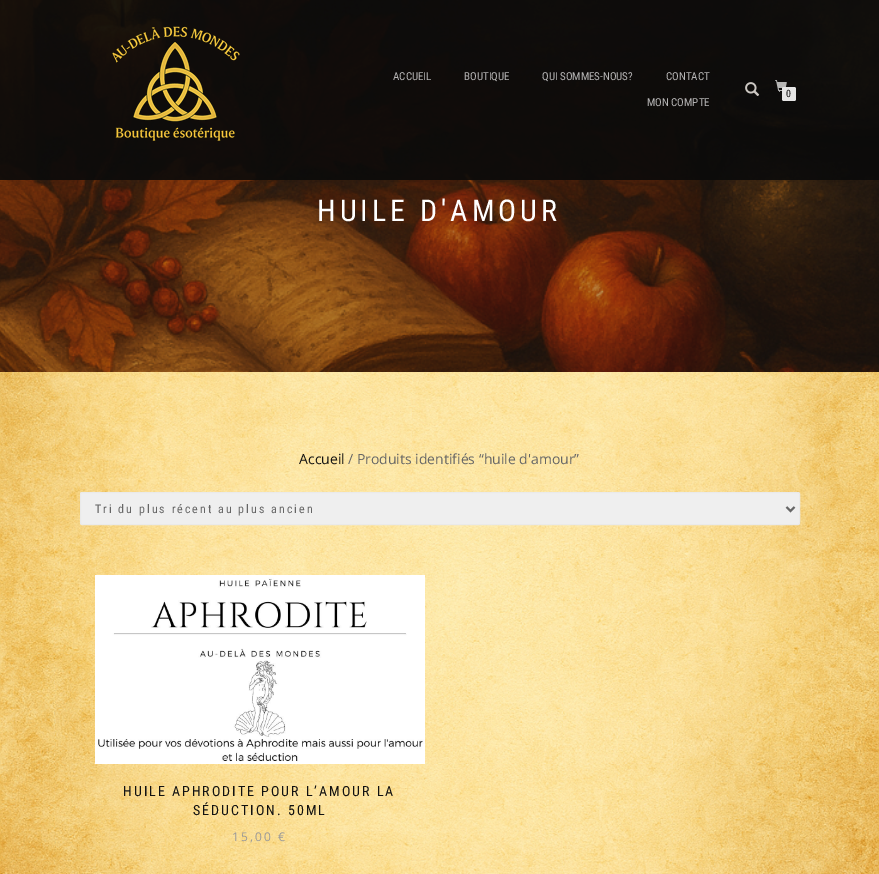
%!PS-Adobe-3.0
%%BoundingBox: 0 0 879 874
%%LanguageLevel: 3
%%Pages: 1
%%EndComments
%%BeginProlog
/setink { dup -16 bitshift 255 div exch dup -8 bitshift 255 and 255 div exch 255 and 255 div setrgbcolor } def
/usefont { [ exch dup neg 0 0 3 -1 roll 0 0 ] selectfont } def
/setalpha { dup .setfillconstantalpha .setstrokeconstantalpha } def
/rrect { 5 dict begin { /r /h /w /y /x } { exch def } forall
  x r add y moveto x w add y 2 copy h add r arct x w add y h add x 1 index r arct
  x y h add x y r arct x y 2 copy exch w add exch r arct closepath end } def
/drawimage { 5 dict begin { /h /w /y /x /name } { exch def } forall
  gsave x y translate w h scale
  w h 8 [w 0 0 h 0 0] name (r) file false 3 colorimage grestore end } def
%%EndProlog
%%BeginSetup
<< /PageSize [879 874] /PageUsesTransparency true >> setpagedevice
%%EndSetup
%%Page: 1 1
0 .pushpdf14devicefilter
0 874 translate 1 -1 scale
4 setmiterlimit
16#FFFFFF setink
0 0 879 874 rectfill
(img1.raw) 0 372 879 502 drawimage
(img5.raw) 0 0 879 372 drawimage
0.9 setalpha
16#0A0A0A setink
0 0 879 180 rectfill
1 setalpha
(img2.raw) 112 26 128 115 drawimage
/RobotoCondensed-Regular 11 usefont
16#B7B6B6 setink
[
    [(ACCUEIL) 393 80]
    [(BOUTIQUE) 464 80]
    [(QUI SOMMES-NOUS?) 542 80]
    [(CONTACT) 666 80]
    [(MON COMPTE) 647 106]
] { aload pop moveto show } forall
(img3.raw) 745 82 15 14 drawimage
(img4.raw) 775 80 12 12 drawimage
16#E5E5E5 setink
782 87 14 14 2 rrect fill
/RobotoCondensed-Regular 10 usefont
16#111111 setink
786 97 moveto (0) show
/RobotoCondensed-Regular 30 usefont
16#FFFFFF setink
317 221 moveto 4 0 (HUILE D'AMOUR) ashow
/OpenSans-Regular 14 usefont
16#111111 setink
299 464 moveto (Accueil) show
16#666666 setink
348 464 moveto (/ Produits identifiés “huile d'amour”) show
16#EFEFEF setink
80.5 492.5 719 32 1.5 rrect gsave fill grestore
16#EAEAEA setink
stroke
16#666666 setink
2 setlinewidth
786.5 507 moveto 790.5 511 lineto 794.5 507 lineto stroke
/RobotoCondensed-Regular 12 usefont
95 513 moveto 2 0 (Tri du plus récent au plus ancien) ashow
(img6.raw) 95 575 330 189 drawimage
/RobotoCondensed-Regular 14 usefont
16#111111 setink
123 796 moveto 2 0 (HUILE APHRODITE POUR L’AMOUR LA) ashow
193 815 moveto 2 0 (SÉDUCTION. 50ML) ashow
/OpenSans-Regular 12 usefont
16#999999 setink
232 841 moveto 2 0 (15,00 €) ashow
.poppdf14devicefilter showpage
%%EOF
